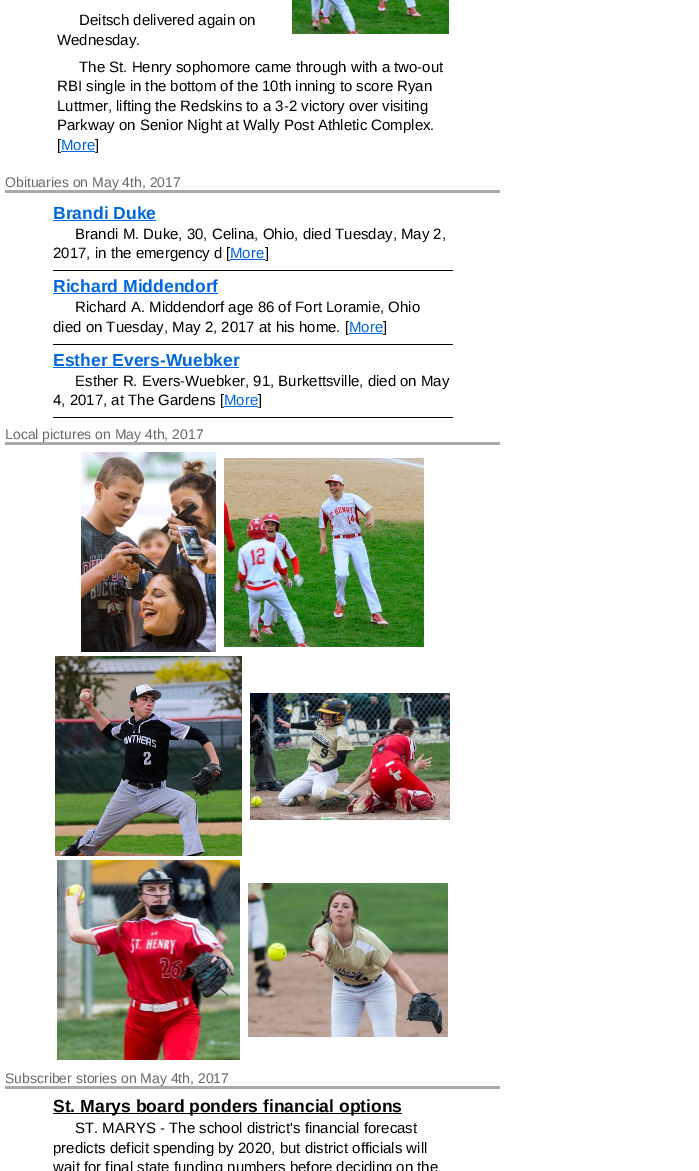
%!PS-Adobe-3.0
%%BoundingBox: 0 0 699 1171
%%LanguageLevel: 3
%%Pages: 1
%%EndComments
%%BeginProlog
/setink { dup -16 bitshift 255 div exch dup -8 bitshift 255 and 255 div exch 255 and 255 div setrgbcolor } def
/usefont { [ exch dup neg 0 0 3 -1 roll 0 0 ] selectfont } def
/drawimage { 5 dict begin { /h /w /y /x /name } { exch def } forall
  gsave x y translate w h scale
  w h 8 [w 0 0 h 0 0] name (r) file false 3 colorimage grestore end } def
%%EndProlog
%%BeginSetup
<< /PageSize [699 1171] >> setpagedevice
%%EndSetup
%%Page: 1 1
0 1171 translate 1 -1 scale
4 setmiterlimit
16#FFFFFF setink
0 0 699 1171 rectfill
/LiberationSans-Regular 15 usefont
16#000000 setink
79 25 moveto (Deitsch delivered again on) show
57 45 moveto (Wednesday.) show
(img1.raw) 292 0 157 34 drawimage
[
    [(The St. Henry sophomore came through with a two-out) 79 72]
    [(RBI single in the bottom of the 10th inning to score Ryan) 57 91]
    [(Luttmer, lifting the Redskins to a 3-2 victory over visiting) 57 111]
    [(Parkway on Senior Night at Wally Post Athletic Complex.) 57 130]
    [([) 57 150]
] { aload pop moveto show } forall
16#0066DD setink
61 150 moveto (More) show
61 151 34 1 rectfill
16#000000 setink
95 150 moveto (]) show
16#A9A9A9 setink
5 190 495 3 rectfill
/LiberationSans-Regular 14 usefont
16#696969 setink
5 187 moveto (Obituaries on May 4th, 2017) show
16#000000 setink
53 270 400 1 rectfill
/LiberationSans-Bold 17.5 usefont
16#0066DD setink
53 219 moveto (Brandi Duke) show
53 220 103 1 rectfill
/LiberationSans-Regular 15 usefont
16#000000 setink
75 239 moveto (Brandi M. Duke, 30, Celina, Ohio, died Tuesday, May 2,) show
53 258 moveto (2017, in the emergency d [) show
16#0066DD setink
230 258 moveto (More) show
230 259 35 1 rectfill
16#000000 setink
265 258 moveto (]) show
53 344 400 1 rectfill
/LiberationSans-Bold 17.5 usefont
16#0066DD setink
53 292 moveto (Richard Middendorf) show
53 293 165 1 rectfill
/LiberationSans-Regular 15 usefont
16#000000 setink
75 312 moveto (Richard A. Middendorf age 86 of Fort Loramie, Ohio) show
53 332 moveto (died on Tuesday, May 2, 2017 at his home. [) show
16#0066DD setink
349 332 moveto (More) show
349 333 34 1 rectfill
16#000000 setink
383 332 moveto (]) show
53 417 400 1 rectfill
/LiberationSans-Bold 17.5 usefont
16#0066DD setink
53 366 moveto (Esther Evers-Wuebker) show
53 367 186 1 rectfill
/LiberationSans-Regular 15 usefont
16#000000 setink
75 386 moveto (Esther R. Evers-Wuebker, 91, Burkettsville, died on May) show
53 405 moveto (4, 2017, at The Gardens [) show
16#0066DD setink
224 405 moveto (More) show
224 406 34 1 rectfill
16#000000 setink
258 405 moveto (]) show
16#A9A9A9 setink
5 442 495 3 rectfill
/LiberationSans-Regular 14 usefont
16#696969 setink
5 439 moveto (Local pictures on May 4th, 2017) show
(img2.raw) 81 452 135 200 drawimage
(img3.raw) 224 458 200 189 drawimage
(img4.raw) 55 656 187 200 drawimage
(img5.raw) 250 693 200 127 drawimage
(img6.raw) 57 860 183 200 drawimage
(img7.raw) 248 883 200 154 drawimage
16#A9A9A9 setink
5 1086 495 3 rectfill
16#696969 setink
5 1083 moveto (Subscriber stories on May 4th, 2017) show
16#000000 setink
53 1113 349 1 rectfill
/LiberationSans-Bold 17.5 usefont
53 1112 moveto (St. Marys board ponders financial options) show
/LiberationSans-Regular 15 usefont
[
    [(ST. MARYS - The school district's financial forecast) 75 1133]
    [(predicts deficit spending by 2020, but district officials will) 53 1153]
    [(wait for final state funding numbers before deciding on the) 53 1172]
] { aload pop moveto show } forall
showpage
%%EOF
